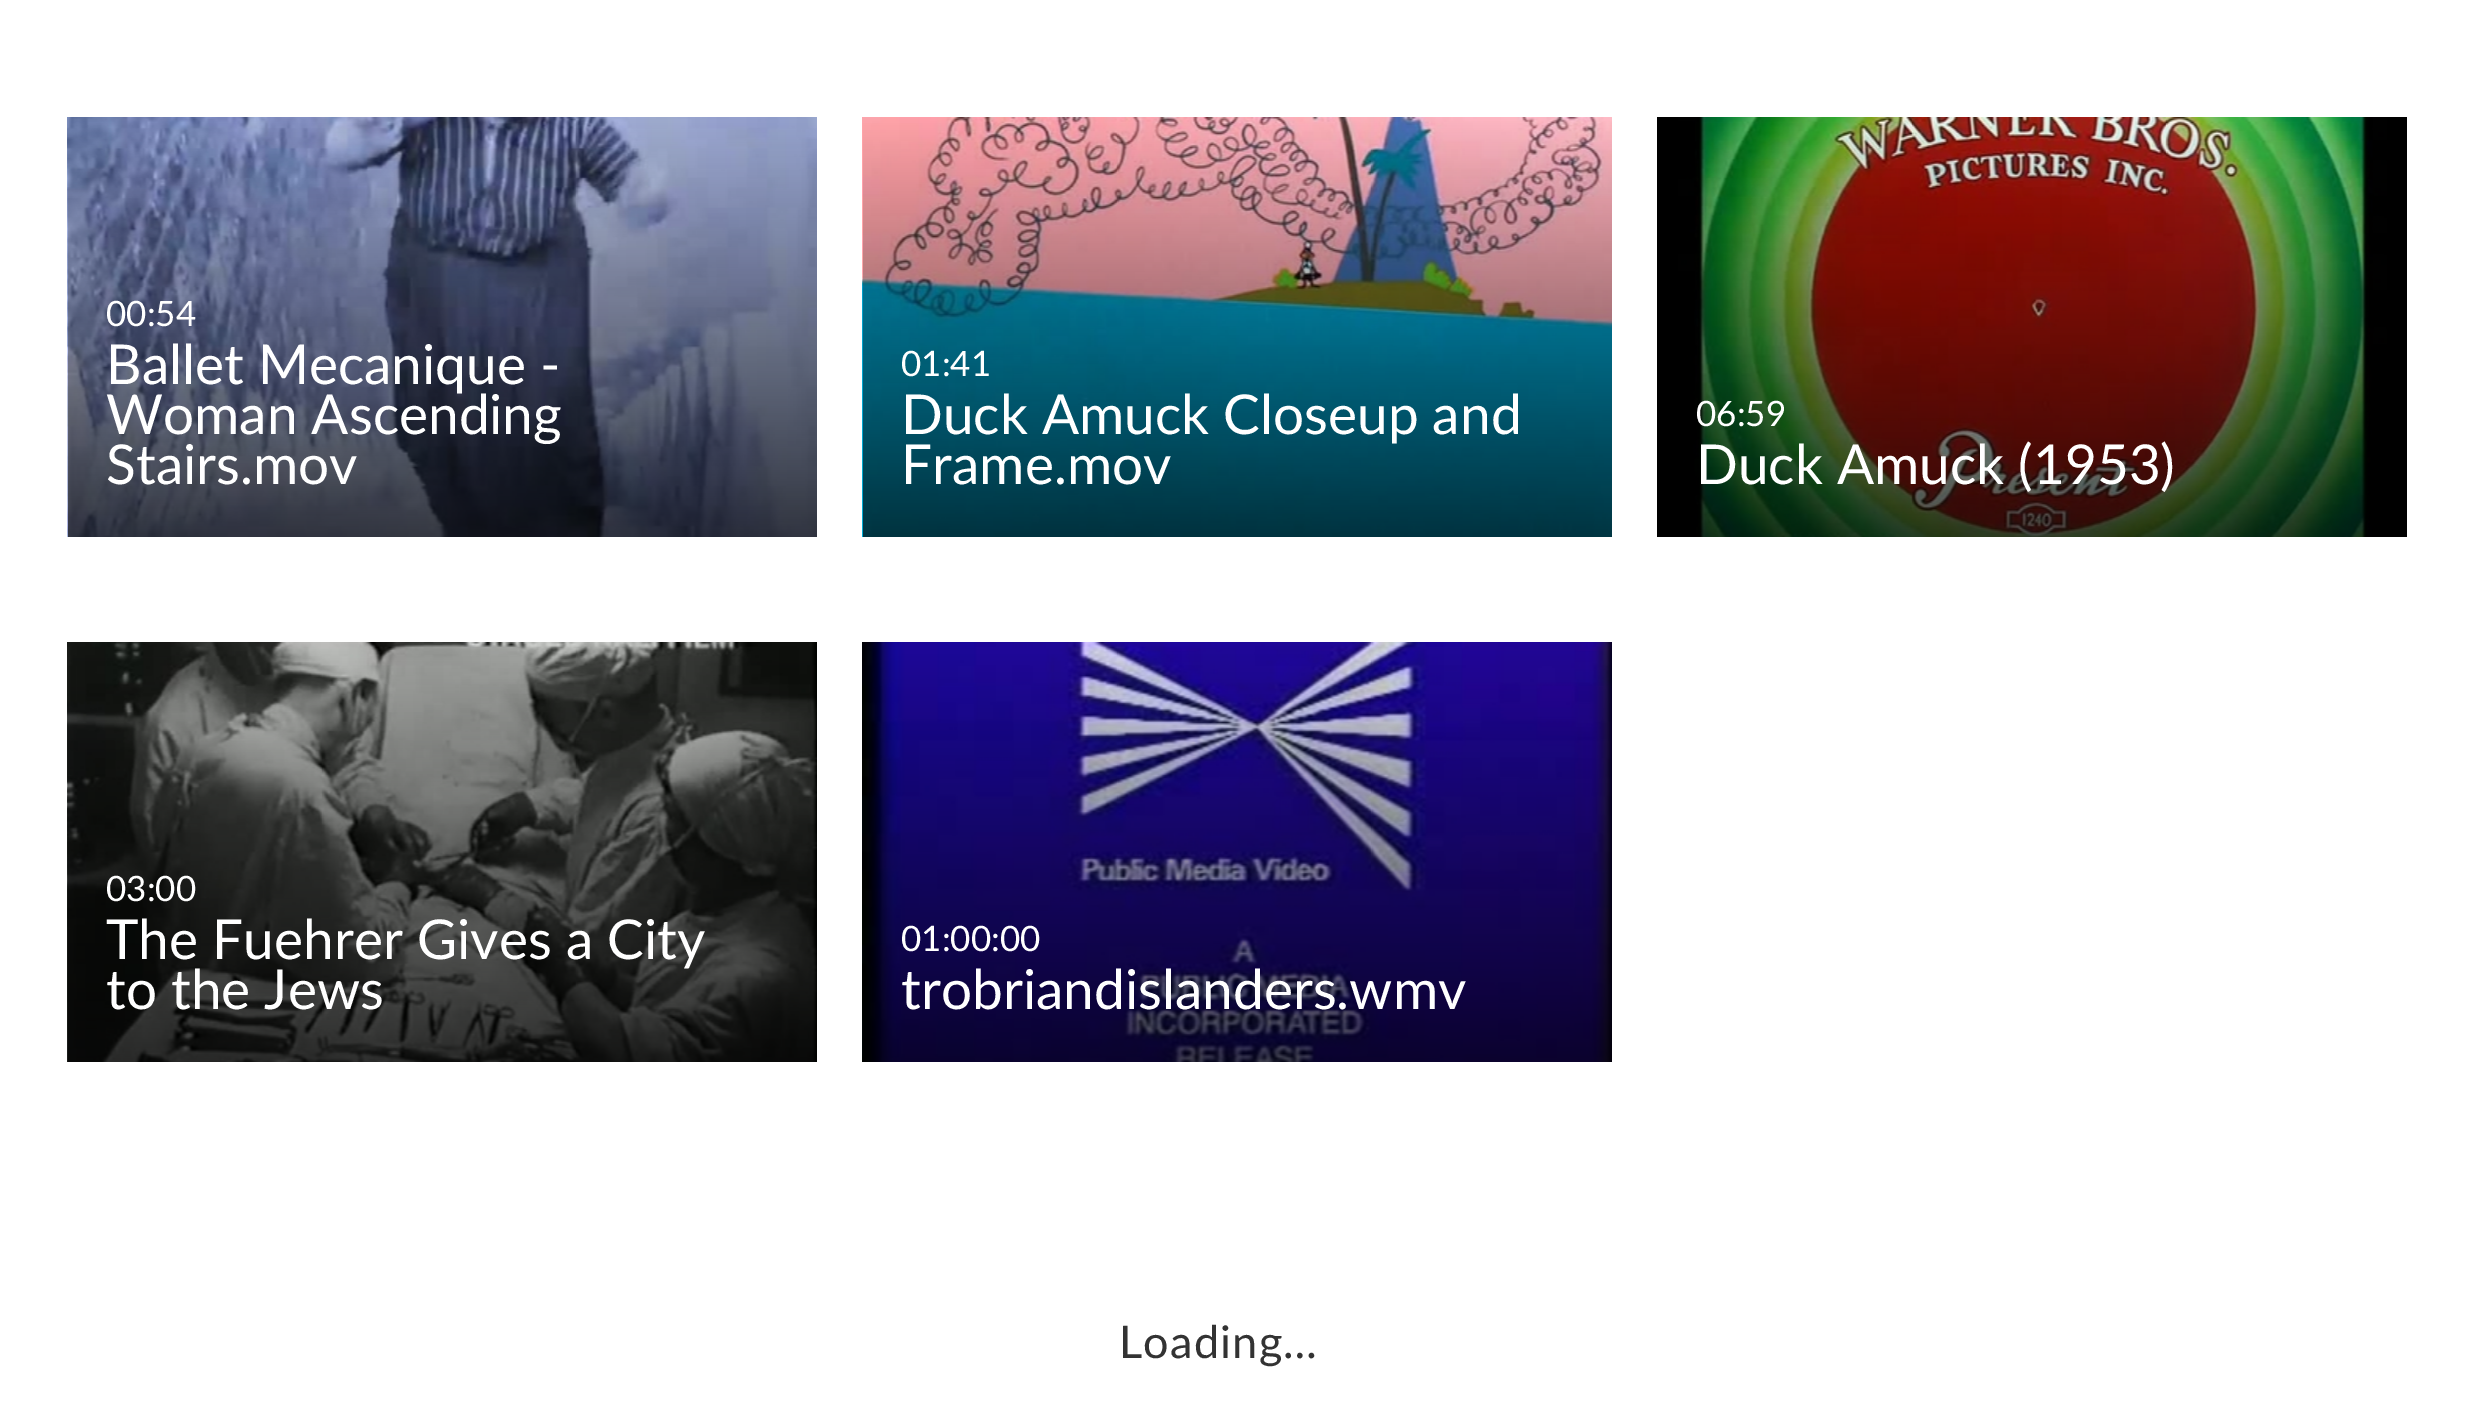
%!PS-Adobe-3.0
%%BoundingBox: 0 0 2483 1415
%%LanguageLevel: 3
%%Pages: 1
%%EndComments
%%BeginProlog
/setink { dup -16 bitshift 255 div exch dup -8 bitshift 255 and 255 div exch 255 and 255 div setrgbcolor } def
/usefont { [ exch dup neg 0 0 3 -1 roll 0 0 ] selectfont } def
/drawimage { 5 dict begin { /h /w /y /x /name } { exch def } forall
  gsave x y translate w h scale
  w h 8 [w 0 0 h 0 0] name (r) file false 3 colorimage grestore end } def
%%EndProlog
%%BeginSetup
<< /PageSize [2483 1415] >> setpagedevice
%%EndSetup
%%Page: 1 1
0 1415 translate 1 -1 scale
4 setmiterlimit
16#FFFFFF setink
0 0 2483 1415 rectfill
(img1.raw) 67 117 750 420 drawimage
/Lato-Regular 35 usefont
106 326 moveto (00:54) show
/Lato-Regular 55 usefont
[
    [(Ballet Mecanique -) 106 384]
    [(Woman Ascending) 106 434]
    [(Stairs.mov) 106 484]
] { aload pop moveto show } forall
(img2.raw) 862 117 750 420 drawimage
/Lato-Regular 35 usefont
901 376 moveto (01:41) show
/Lato-Regular 55 usefont
901 434 moveto (Duck Amuck Closeup and) show
901 484 moveto (Frame.mov) show
(img3.raw) 1657 117 750 420 drawimage
/Lato-Regular 35 usefont
1696 426 moveto (06:59) show
/Lato-Regular 55 usefont
1696 484 moveto (Duck Amuck \(1953\)) show
(img4.raw) 67 642 750 420 drawimage
/Lato-Regular 35 usefont
106 901 moveto (03:00) show
/Lato-Regular 55 usefont
106 959 moveto (The Fuehrer Gives a City) show
106 1009 moveto (to the Jews) show
(img5.raw) 862 642 750 420 drawimage
/Lato-Regular 35 usefont
901 951 moveto (01:00:00) show
/Lato-Regular 55 usefont
901 1009 moveto (trobriandislanders.wmv) show
/Lato-Regular 45 usefont
16#333333 setink
1119 1358 moveto 1.25 0 (Loading…) ashow
showpage
%%EOF
